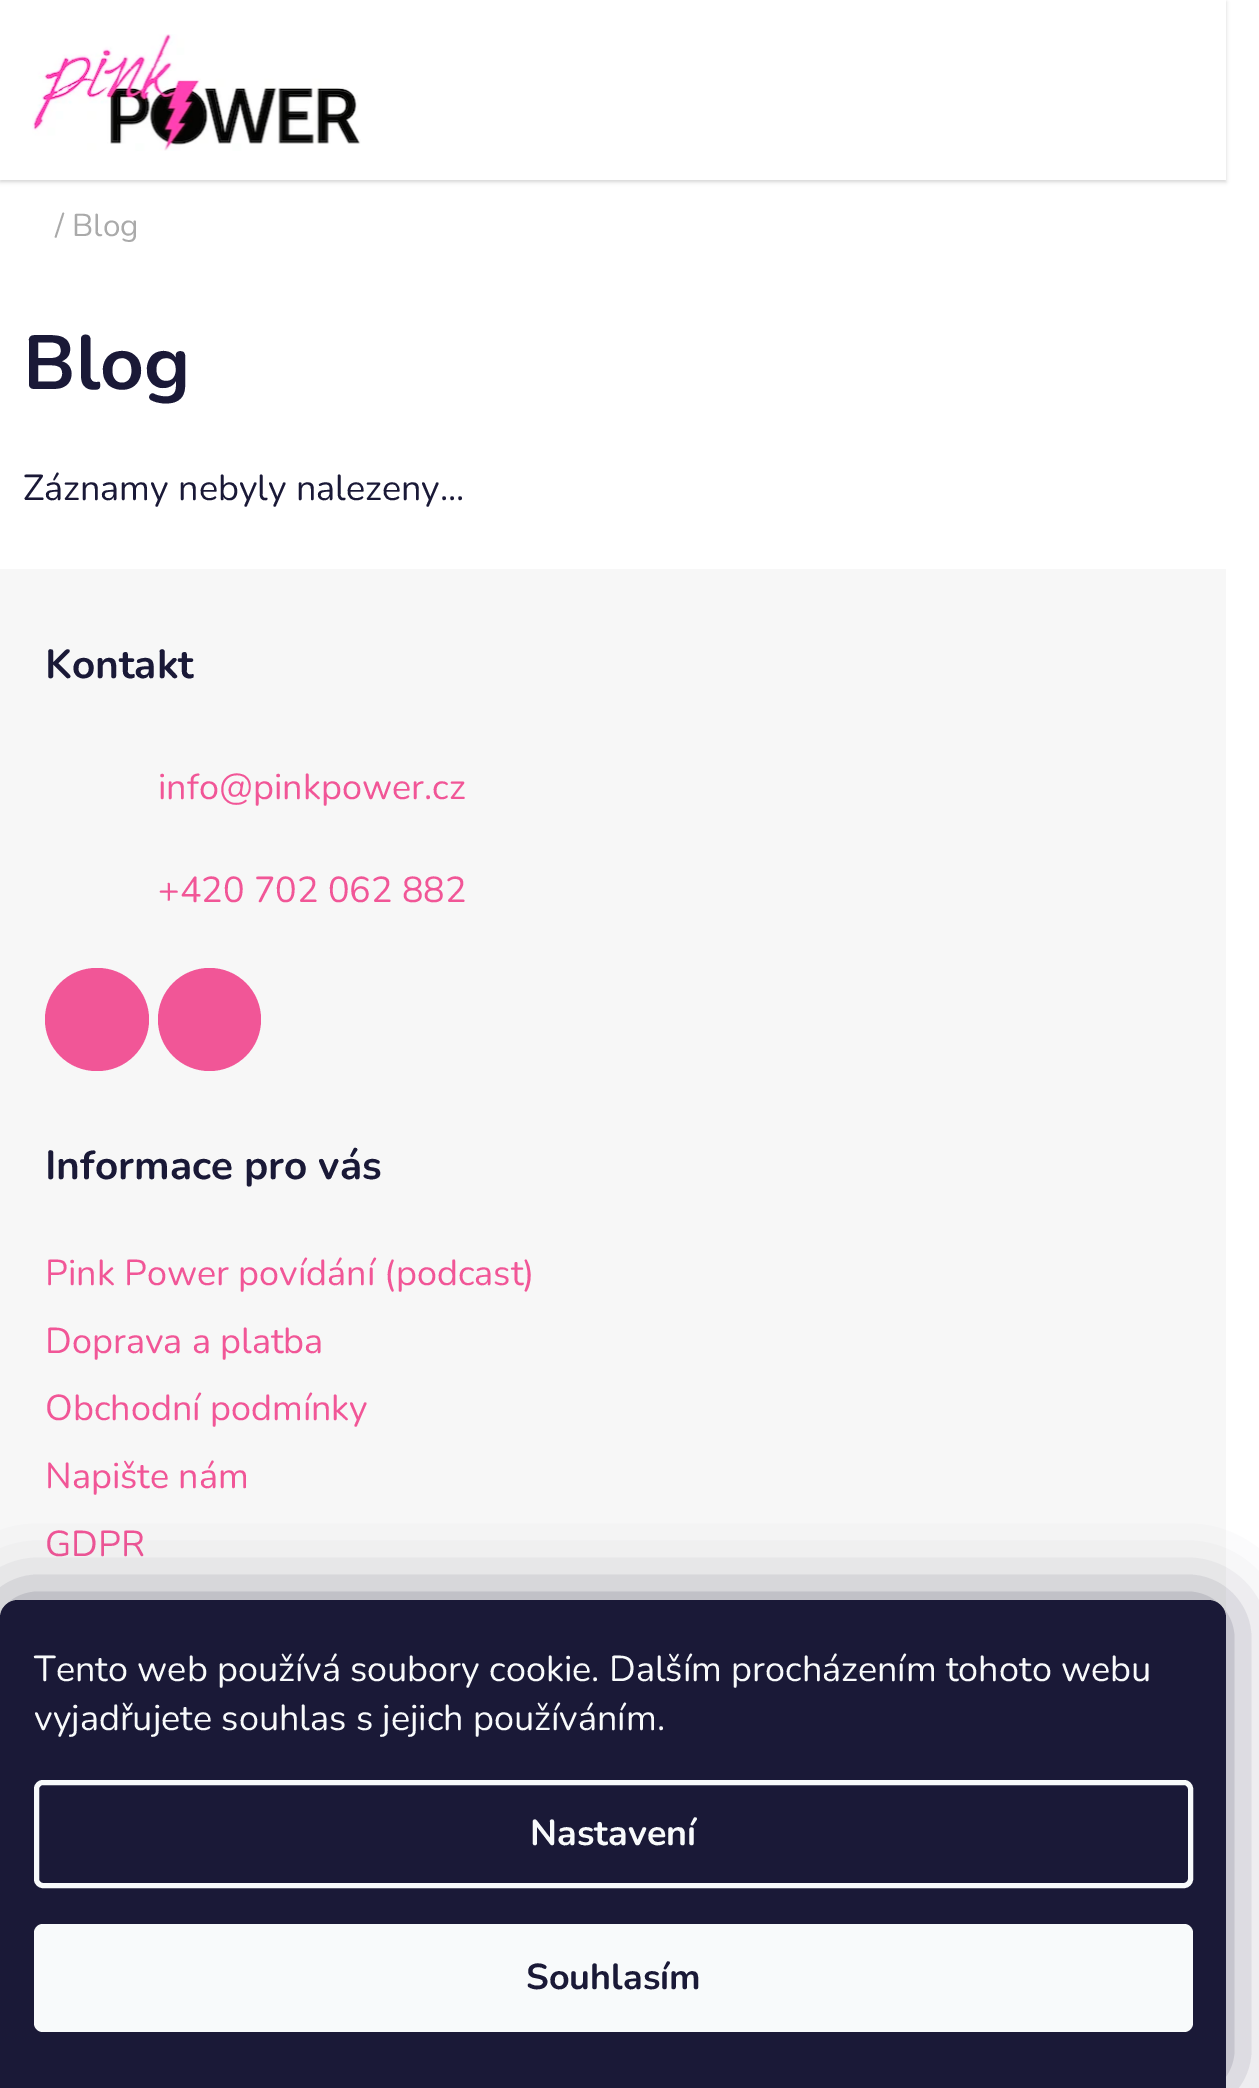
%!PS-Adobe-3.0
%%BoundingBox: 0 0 1259 2088
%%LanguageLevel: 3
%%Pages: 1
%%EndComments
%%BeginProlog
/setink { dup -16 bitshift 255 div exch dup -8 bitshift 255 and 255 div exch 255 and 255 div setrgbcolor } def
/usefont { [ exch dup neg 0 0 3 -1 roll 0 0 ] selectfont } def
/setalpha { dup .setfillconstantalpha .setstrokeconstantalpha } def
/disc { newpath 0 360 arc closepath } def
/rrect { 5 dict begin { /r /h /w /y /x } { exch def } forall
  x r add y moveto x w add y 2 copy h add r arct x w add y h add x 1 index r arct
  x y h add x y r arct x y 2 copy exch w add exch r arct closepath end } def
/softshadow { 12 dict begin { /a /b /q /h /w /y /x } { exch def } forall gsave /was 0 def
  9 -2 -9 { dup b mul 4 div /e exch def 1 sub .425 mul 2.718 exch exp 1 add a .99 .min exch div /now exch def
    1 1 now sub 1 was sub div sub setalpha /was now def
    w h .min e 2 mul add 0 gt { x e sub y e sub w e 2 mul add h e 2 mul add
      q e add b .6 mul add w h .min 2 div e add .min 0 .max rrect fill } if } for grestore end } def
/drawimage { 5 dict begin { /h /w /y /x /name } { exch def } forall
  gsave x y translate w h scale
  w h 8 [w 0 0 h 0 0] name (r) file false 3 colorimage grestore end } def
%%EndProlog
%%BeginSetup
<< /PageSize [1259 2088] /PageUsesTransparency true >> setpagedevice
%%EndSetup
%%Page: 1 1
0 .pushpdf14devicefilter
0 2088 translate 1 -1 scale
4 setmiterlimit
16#FFFFFF setink
0 0 1259 2088 rectfill
gsave
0 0 moveto 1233 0 lineto 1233 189 lineto 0 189 lineto closepath 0 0 moveto 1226 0 lineto 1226 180 lineto 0 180 lineto closepath eoclip newpath
16#000000 setink
0 2 1226 180 0 2 0.16 softshadow
grestore
(img1.raw) 32 34 329 117 drawimage
/Nunito-Regular 31.5 usefont
16#AAAAAA setink
55 236 moveto (/ Blog) show
/Nunito-Bold 76.5 usefont
16#1A1937 setink
23 389 moveto (Blog) show
/Nunito-Regular 36 usefont
23 500 moveto (Záznamy nebyly nalezeny...) show
16#F7F7F7 setink
0 569 1226 1049 rectfill
/Nunito-Bold 40.5 usefont
16#1A1937 setink
45 678 moveto (Kontakt) show
/Nunito-Regular 36 usefont
16#F15697 setink
158 799 moveto (info@pinkpower.cz) show
158 902 moveto (+420 702 062 882) show
45 968 104 103 51.5 rrect fill
209.5 1019.5 51.5 disc fill
/Nunito-Bold 40.5 usefont
16#1A1937 setink
45 1179 moveto (Informace pro vás) show
/Nunito-Regular 36 usefont
16#F15697 setink
[
    [(Pink Power povídání \(podcast\)) 45 1285]
    [(Doprava a platba) 45 1353]
    [(Obchodní podmínky) 45 1420]
    [(Napište nám) 45 1488]
    [(GDPR) 45 1556]
] { aload pop moveto show } forall
16#1B1939 setink
0 1600 1226 488 18 34 0.5 softshadow
16#1A1937 setink
18 1600 moveto 1208 1600 lineto 1218 1600 1226 1608 1226 1618 curveto 1226 2088 lineto 0 2088 lineto 0 1618 lineto 0 1608 8 1600 18 1600 curveto closepath fill
16#F8FAFB setink
34 1681 moveto (Tento web používá soubory cookie. Dalším procházením tohoto webu) show
34 1730 moveto (vyjadřujete souhlas s jejich používáním.) show
5 setlinewidth
36.5 1782.5 1154 103 6.5 rrect stroke
/Nunito-Bold 36 usefont
530 1845 moveto (Nastavení) show
34 1924 1159 108 9 rrect fill
16#1A1937 setink
526 1989 moveto (Souhlasím) show
.poppdf14devicefilter showpage
%%EOF
